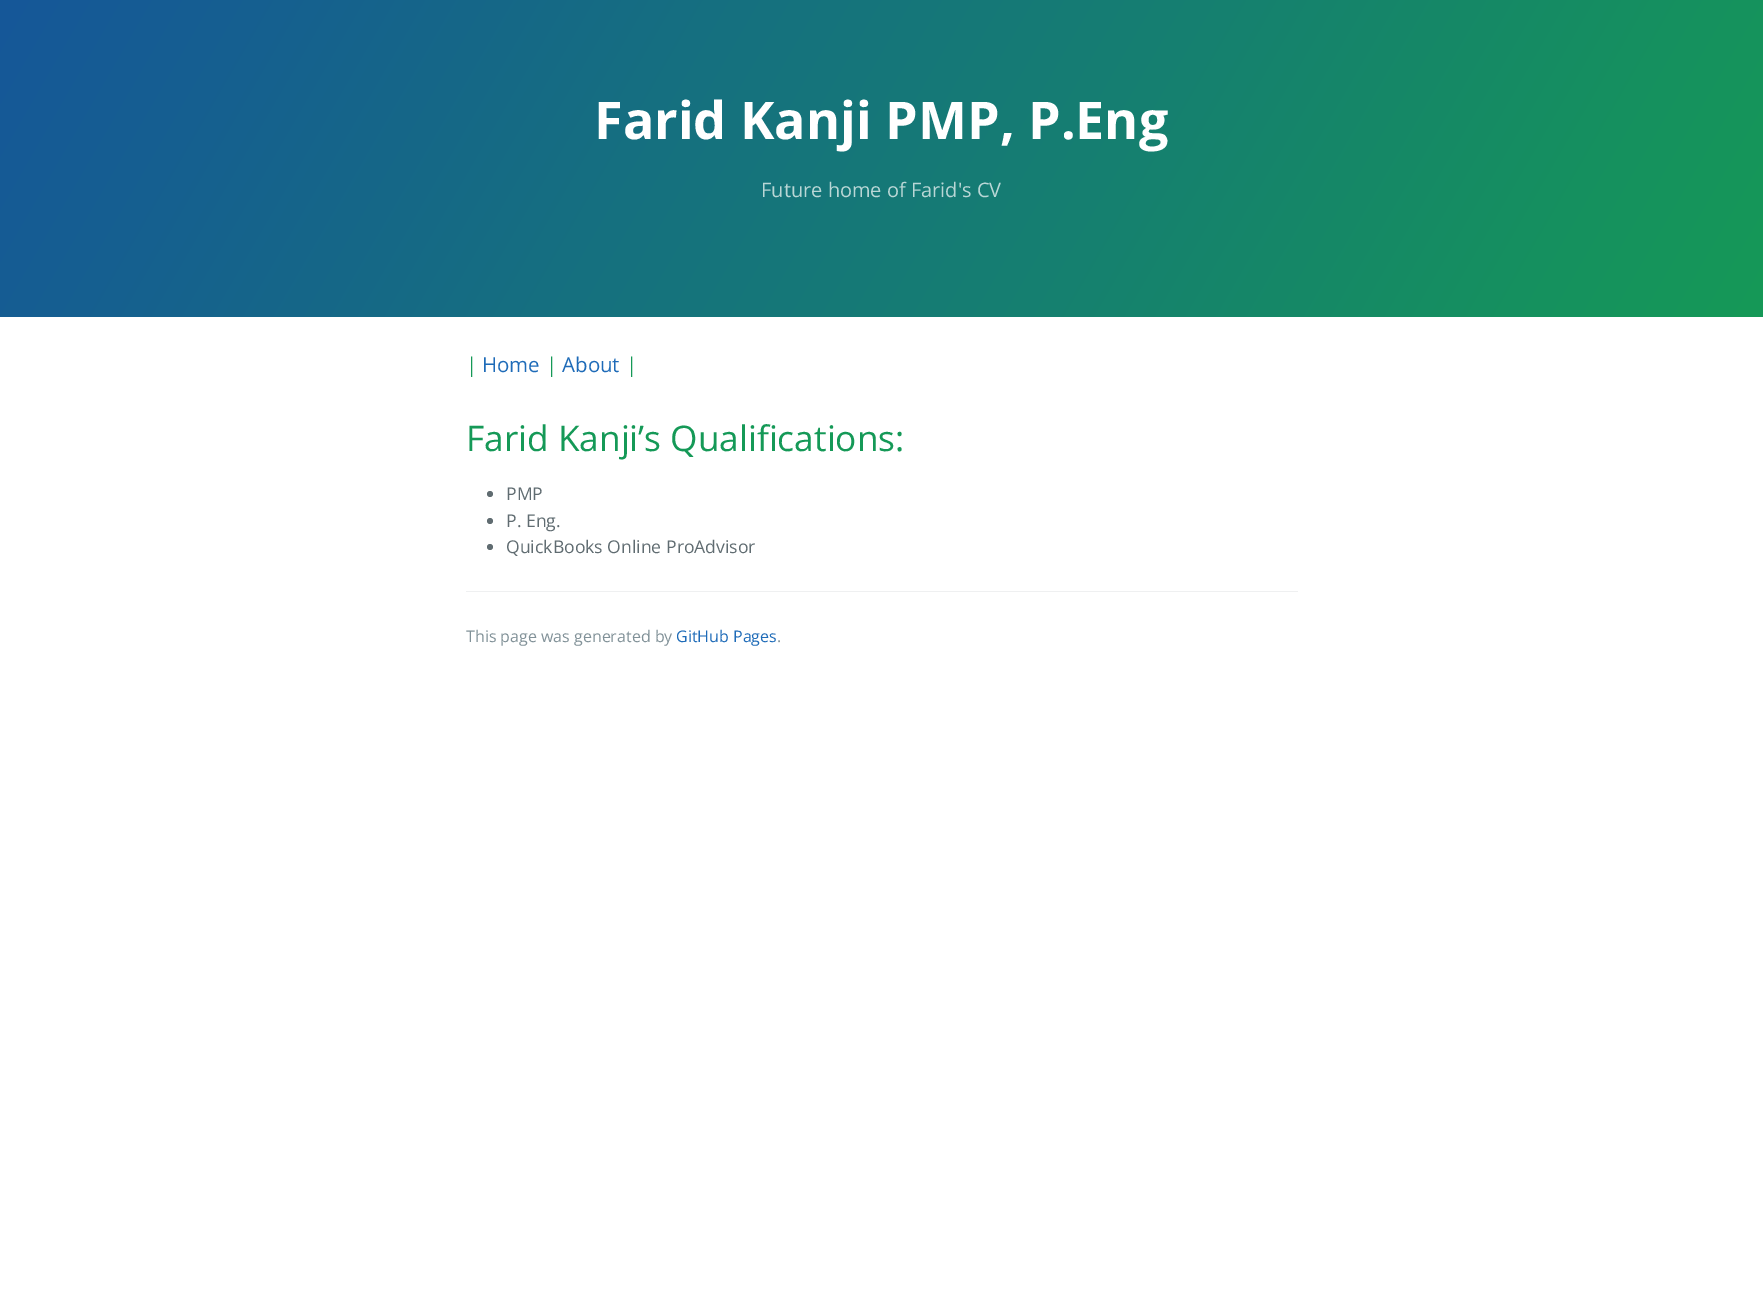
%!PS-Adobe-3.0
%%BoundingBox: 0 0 1763 1299
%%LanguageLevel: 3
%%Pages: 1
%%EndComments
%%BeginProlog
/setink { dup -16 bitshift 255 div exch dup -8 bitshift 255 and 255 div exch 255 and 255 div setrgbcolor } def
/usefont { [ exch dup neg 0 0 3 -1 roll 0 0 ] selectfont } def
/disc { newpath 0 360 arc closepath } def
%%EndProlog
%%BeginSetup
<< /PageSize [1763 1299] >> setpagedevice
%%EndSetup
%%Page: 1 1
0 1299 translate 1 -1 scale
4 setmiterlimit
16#FFFFFF setink
0 0 1763 1299 rectfill
gsave 0 0 moveto 1763 0 lineto 1763 317 lineto 0 317 lineto closepath clip newpath
<< /ShadingType 2 /ColorSpace /DeviceRGB /Coords [152 -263 1611 580] /Extend [true true] /Function << /FunctionType 2 /Domain [0 1] /C0 [0.082 0.341 0.6] /C1 [0.082 0.6 0.341] /N 1 >> >> shfill grestore
/OpenSans-Bold 52 usefont
594 139 moveto (Farid Kanji PMP, P.Eng) show
/OpenSans-Regular 20 usefont
16#B9D7D6 setink
761 197 moveto (Future home of Farid's CV) show
/OpenSans-Regular 20.5 usefont
16#159957 setink
466 372 moveto (|) show
16#1E6BB8 setink
482 372 moveto (Home) show
16#159957 setink
546 372 moveto (|) show
16#1E6BB8 setink
562 372 moveto (About) show
16#159957 setink
626 372 moveto (|) show
/OpenSans-Regular 35.25 usefont
466 451 moveto (Farid Kanji’s Qualifications:) show
16#606C71 setink
490 494 3 disc fill
/OpenSans-Regular 17.6 usefont
506 500 moveto (PMP) show
490 521 3 disc fill
506 527 moveto (P. Eng.) show
490 547 3 disc fill
506 553 moveto (QuickBooks Online ProAdvisor) show
16#EFF0F1 setink
466 591 832 1 rectfill
/OpenSans-Regular 16 usefont
16#819198 setink
466 642 moveto (This page was generated by) show
16#1E6BB8 setink
676 642 moveto (GitHub Pages) show
16#819198 setink
777 642 moveto (.) show
showpage
%%EOF
